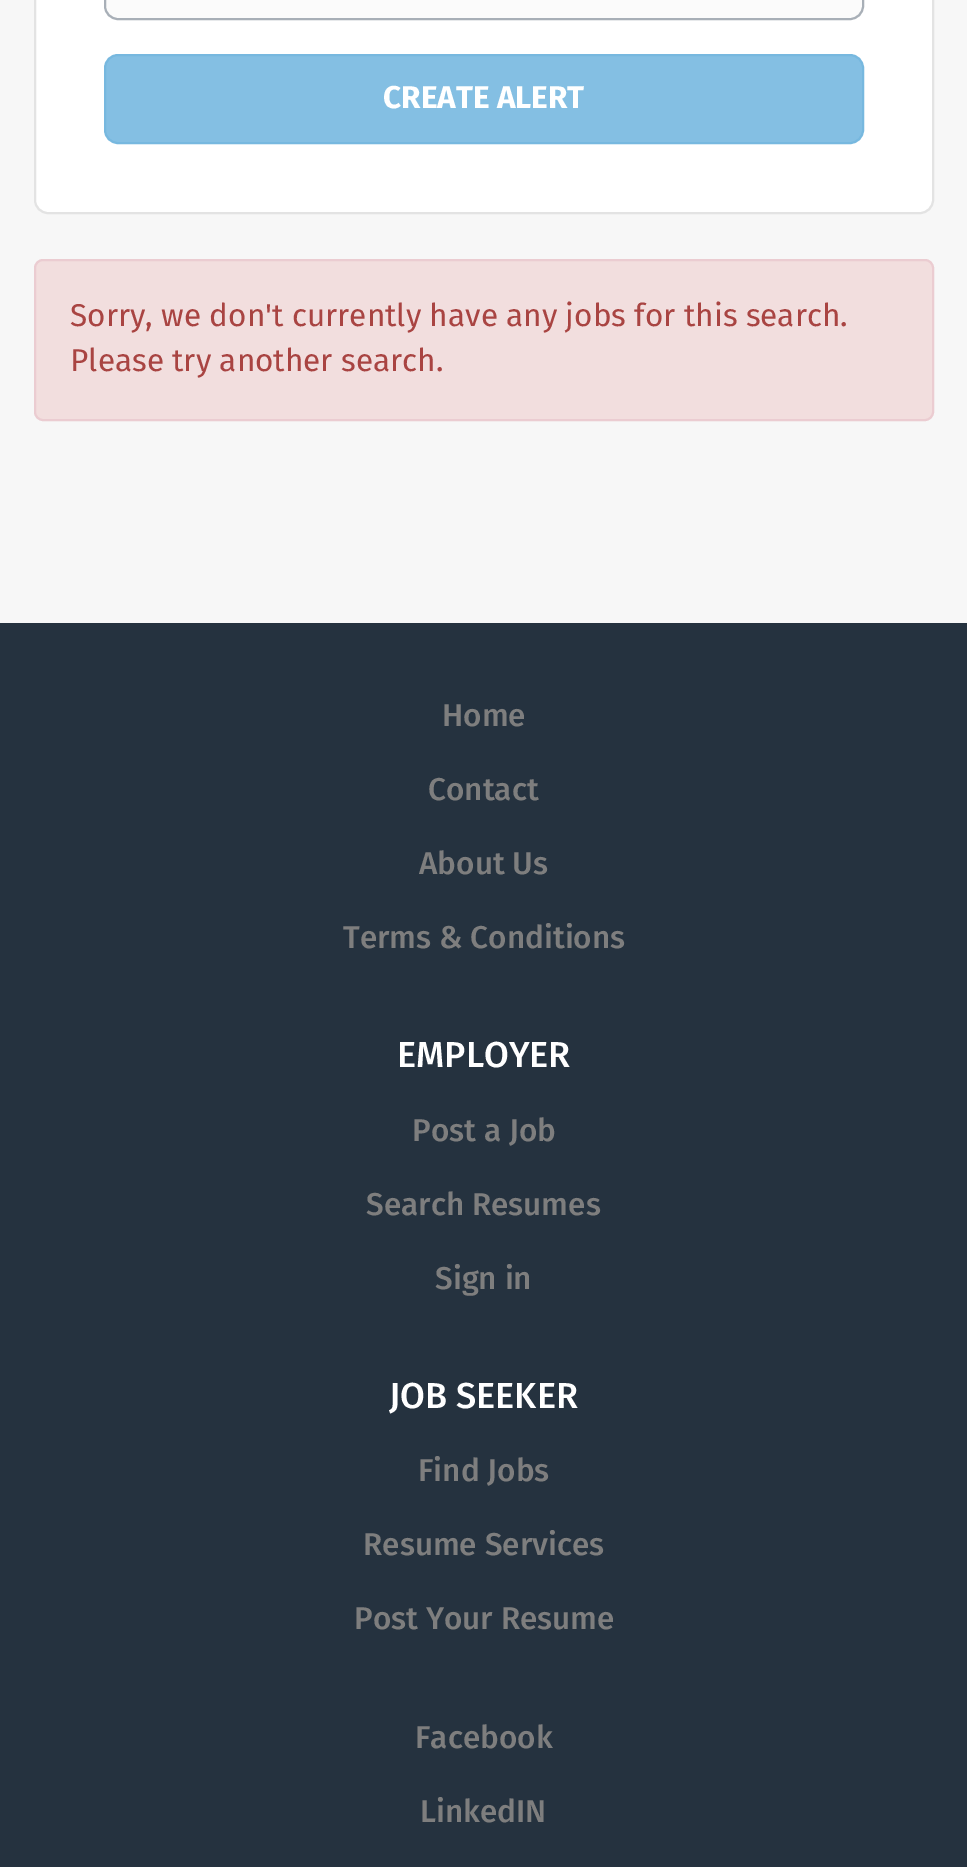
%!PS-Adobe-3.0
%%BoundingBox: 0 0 967 1867
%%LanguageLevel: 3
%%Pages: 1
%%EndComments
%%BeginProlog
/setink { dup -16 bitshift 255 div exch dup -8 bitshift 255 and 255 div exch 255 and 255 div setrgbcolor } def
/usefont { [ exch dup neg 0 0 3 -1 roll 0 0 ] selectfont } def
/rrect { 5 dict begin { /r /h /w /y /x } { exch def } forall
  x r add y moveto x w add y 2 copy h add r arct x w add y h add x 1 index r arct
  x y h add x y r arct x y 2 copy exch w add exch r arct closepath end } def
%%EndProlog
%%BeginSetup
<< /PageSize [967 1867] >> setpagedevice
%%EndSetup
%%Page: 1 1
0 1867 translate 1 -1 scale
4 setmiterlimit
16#F7F7F7 setink
0 0 967 1867 rectfill
16#FFFFFF setink
35 -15 898 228 13 rrect gsave fill grestore
16#E3E3E3 setink
2 setlinewidth
stroke
16#FBFBFB setink
105 -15 758 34 13 rrect gsave fill grestore
16#A8AFB7 setink
stroke
16#84BFE3 setink
105 55 758 88 13 rrect gsave fill grestore
16#77B8DF setink
stroke
/FiraSans-Bold 31.5 usefont
16#FFFFFF setink
383 108 moveto (CREATE ALERT) show
16#F2DEDE setink
35 260 898 160 8 rrect gsave fill grestore
16#EBCCD1 setink
stroke
/FiraSans-Regular 31.5 usefont
16#A94442 setink
70 326 moveto (Sorry, we don't currently have any jobs for this search.) show
70 371 moveto (Please try another search.) show
16#25323F setink
0 623 967 1244 rectfill
/FiraSans-Medium 31.5 usefont
16#7E7E7E setink
[
    [(Home) 442 726]
    [(Contact) 428 800]
    [(About Us) 419 874]
    [(Terms & Conditions) 343 948]
] { aload pop moveto show } forall
/FiraSans-Medium 36 usefont
16#FFFFFF setink
397 1067 moveto (EMPLOYER) show
/FiraSans-Medium 31.5 usefont
16#7E7E7E setink
[
    [(Post a Job) 412 1141]
    [(Search Resumes) 366 1215]
    [(Sign in) 435 1289]
] { aload pop moveto show } forall
/FiraSans-Medium 36 usefont
16#FFFFFF setink
389 1408 moveto (JOB SEEKER) show
/FiraSans-Medium 31.5 usefont
16#7E7E7E setink
[
    [(Find Jobs) 418 1481]
    [(Resume Services) 363 1555]
    [(Post Your Resume) 354 1629]
    [(Facebook) 415 1748]
    [(LinkedIN) 420 1822]
] { aload pop moveto show } forall
showpage
%%EOF
